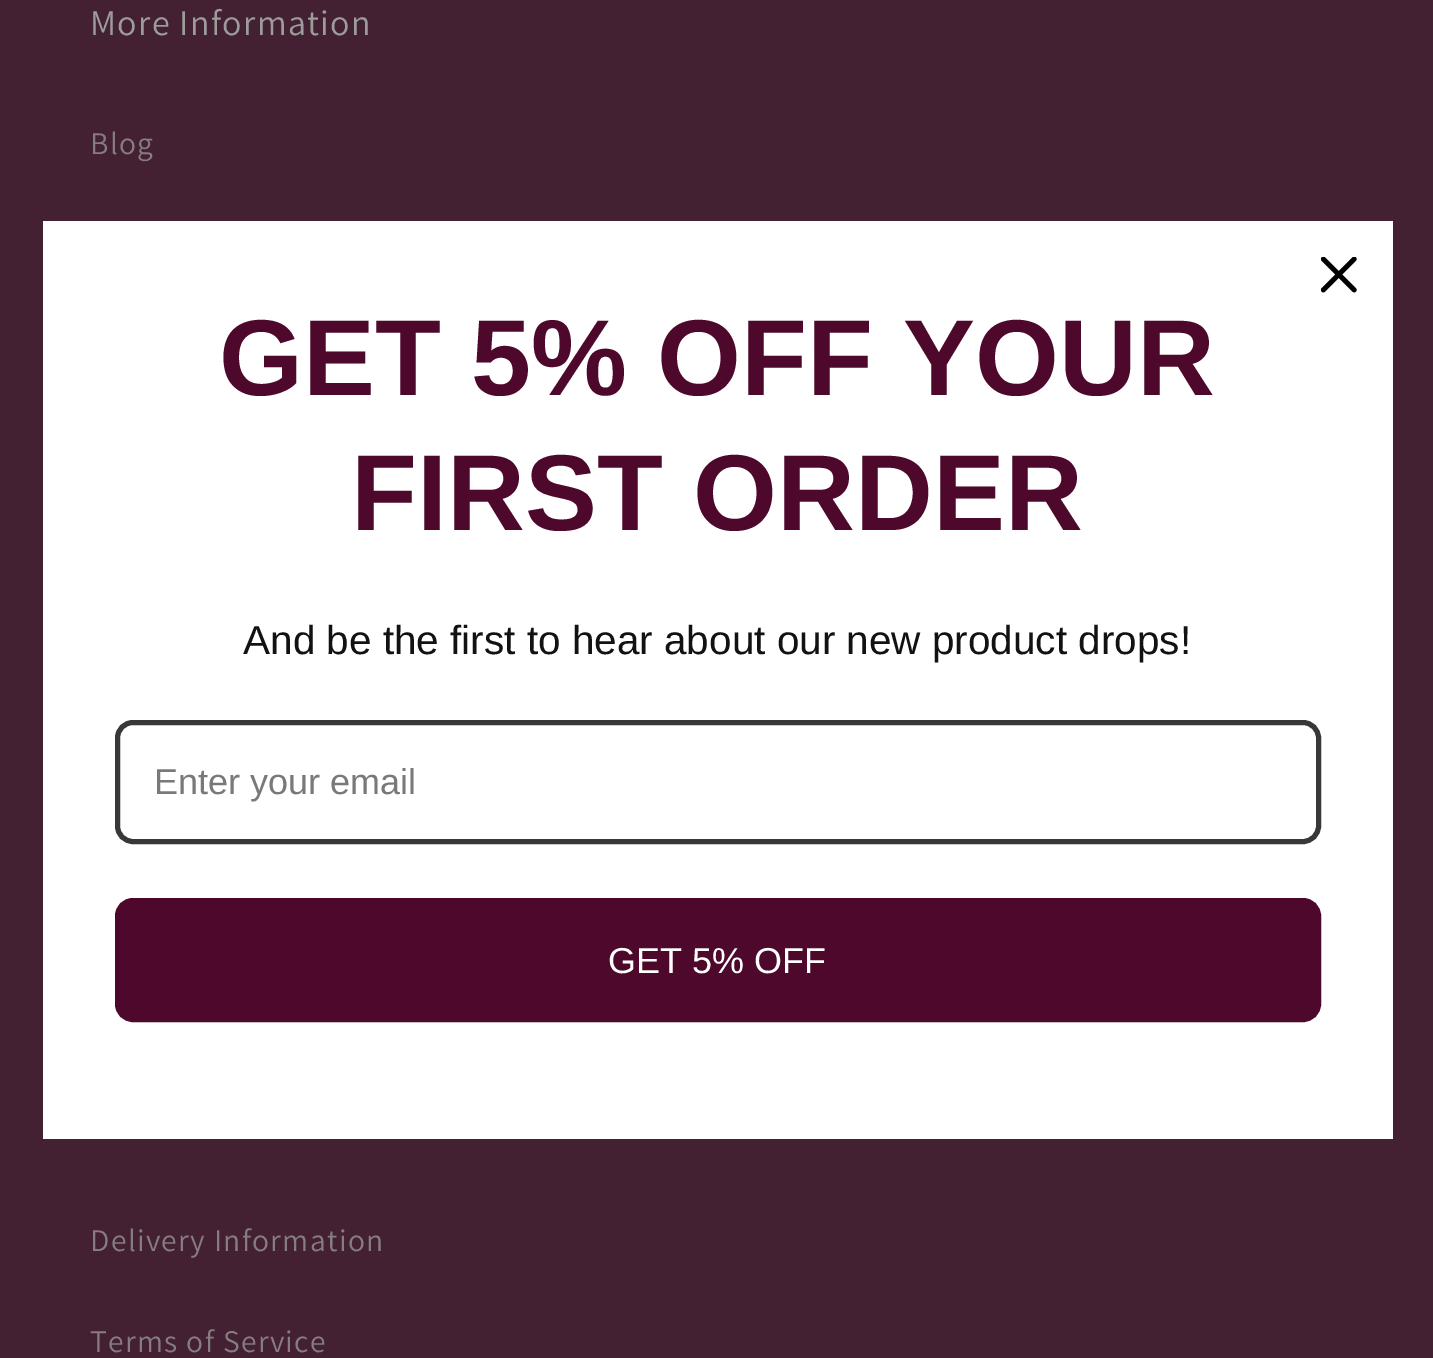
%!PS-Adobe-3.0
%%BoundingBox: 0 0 1433 1358
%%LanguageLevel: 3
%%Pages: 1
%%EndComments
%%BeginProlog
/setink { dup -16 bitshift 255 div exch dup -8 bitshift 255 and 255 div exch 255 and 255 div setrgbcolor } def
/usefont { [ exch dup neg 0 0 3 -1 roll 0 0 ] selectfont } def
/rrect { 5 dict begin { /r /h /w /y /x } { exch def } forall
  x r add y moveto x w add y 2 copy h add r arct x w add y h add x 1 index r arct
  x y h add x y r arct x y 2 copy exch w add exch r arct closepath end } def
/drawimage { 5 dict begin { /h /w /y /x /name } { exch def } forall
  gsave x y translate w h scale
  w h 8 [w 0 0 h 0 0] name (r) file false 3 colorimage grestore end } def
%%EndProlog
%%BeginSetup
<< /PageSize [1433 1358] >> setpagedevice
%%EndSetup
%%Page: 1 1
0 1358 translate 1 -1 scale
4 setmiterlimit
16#432032 setink
0 0 1433 1358 rectfill
/Assistant-Regular 36 usefont
16#9C9C9C setink
90 35 moveto 1.35 0 (More Information) ashow
/Assistant-Regular 31.5 usefont
16#867D81 setink
90 154 moveto 1.35 0 (Blog) ashow
90 1251 moveto 1.35 0 (Delivery Information) ashow
90 1352 moveto 1.35 0 (Terms of Service) ashow
16#FFFFFF setink
43 221 1350 918 rectfill
(img1.raw) 1321 257 36 36 drawimage
/LiberationSans-Bold 108 usefont
16#4D082B setink
219 395 moveto (GET 5% OFF YOUR) show
351 530 moveto (FIRST ORDER) show
/LiberationSans-Regular 40.5 usefont
16#121212 setink
243 654 moveto (And be the first to hear about our new product drops!) show
16#383838 setink
5 setlinewidth
117.5 722.5 1201 119 15.5 rrect stroke
/LiberationSans-Regular 36 usefont
16#797979 setink
154 794 moveto (Enter your email) show
16#4D082B setink
117.5 900.5 1201 119 15.5 rrect gsave fill grestore
stroke
16#FFFFFF setink
608 973 moveto (GET 5% OFF) show
showpage
%%EOF
